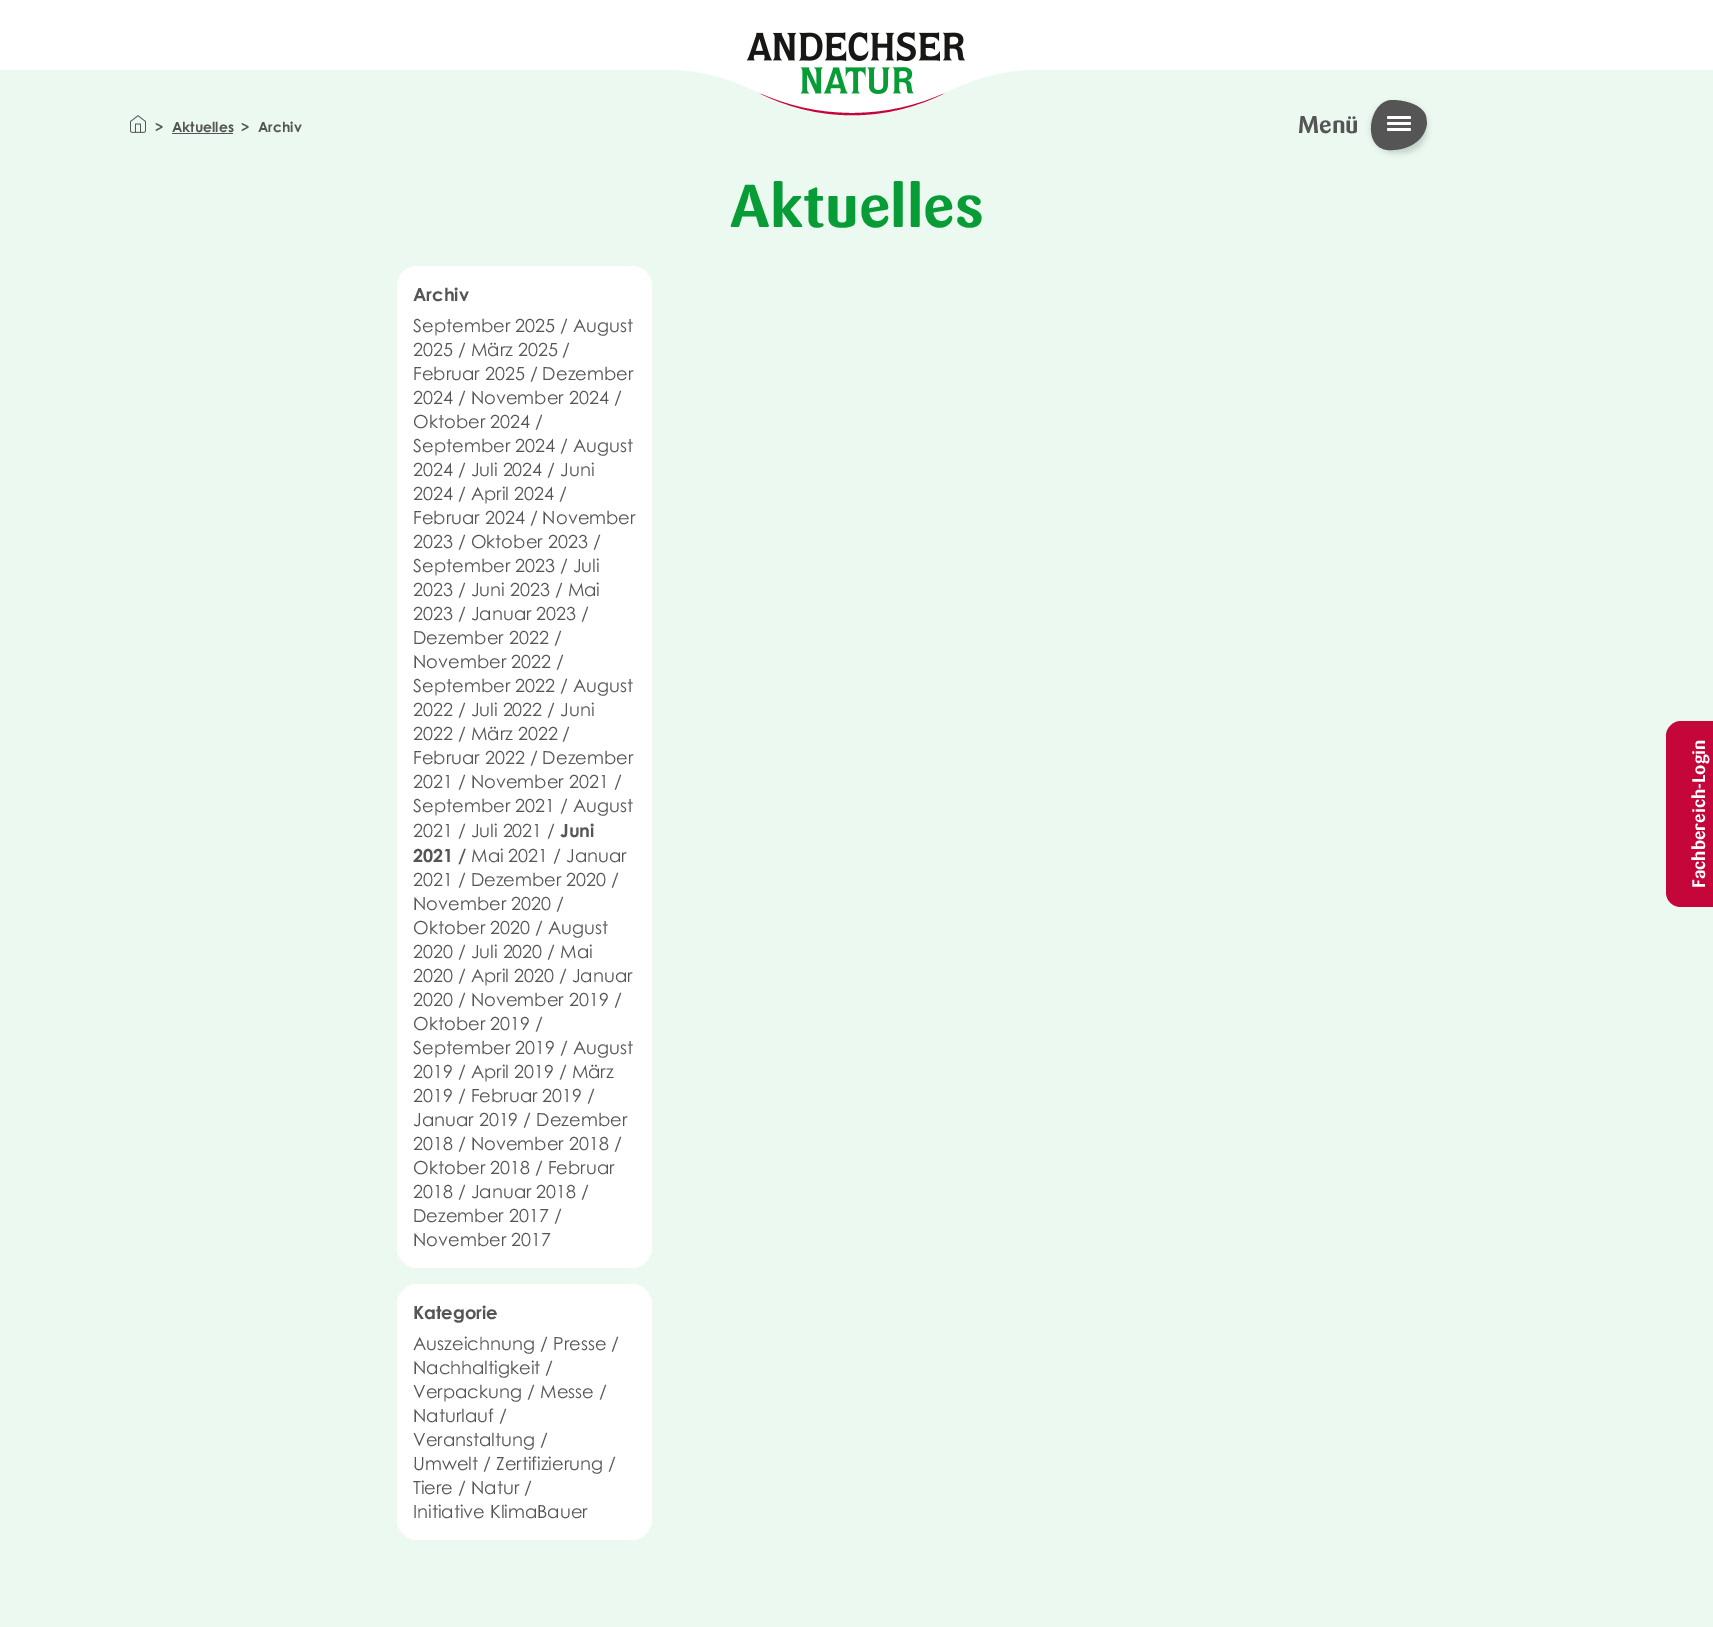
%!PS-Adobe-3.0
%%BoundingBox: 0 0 1713 1627
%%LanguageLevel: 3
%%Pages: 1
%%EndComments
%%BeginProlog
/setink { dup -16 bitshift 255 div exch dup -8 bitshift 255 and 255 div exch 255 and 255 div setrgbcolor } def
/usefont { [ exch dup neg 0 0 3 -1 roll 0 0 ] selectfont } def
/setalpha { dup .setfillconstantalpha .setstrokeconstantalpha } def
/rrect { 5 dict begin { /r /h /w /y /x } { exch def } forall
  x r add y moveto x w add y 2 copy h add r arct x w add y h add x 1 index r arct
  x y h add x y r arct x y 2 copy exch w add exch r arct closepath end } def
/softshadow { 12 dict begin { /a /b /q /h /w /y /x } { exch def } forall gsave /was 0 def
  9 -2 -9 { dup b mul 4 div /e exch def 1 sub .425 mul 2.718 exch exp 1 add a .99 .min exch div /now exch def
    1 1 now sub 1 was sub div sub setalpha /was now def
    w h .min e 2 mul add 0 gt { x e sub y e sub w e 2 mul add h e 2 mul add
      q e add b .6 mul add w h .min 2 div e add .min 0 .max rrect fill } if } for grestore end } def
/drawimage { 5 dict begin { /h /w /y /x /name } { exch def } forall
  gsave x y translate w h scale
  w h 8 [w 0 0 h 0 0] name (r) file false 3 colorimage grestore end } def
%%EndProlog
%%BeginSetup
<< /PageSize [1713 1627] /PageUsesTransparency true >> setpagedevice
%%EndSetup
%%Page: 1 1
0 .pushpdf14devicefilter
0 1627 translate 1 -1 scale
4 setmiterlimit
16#EBF9F0 setink
0 0 1713 1627 rectfill
(img1.raw) 130 115 16 18 drawimage
/CenturyGothic-Bold 14 usefont
16#555555 setink
155 132 moveto (>) show
172 132 moveto (Aktuelles) show
172 133 61 1 rectfill
241 132 moveto (>) show
258 132 moveto (Archiv) show
/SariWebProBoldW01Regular-Bold 60 usefont
16#079C36 setink
730 227 moveto (Aktuelles) show
16#FFFFFF setink
397 266 255 1002 20 rrect fill
/CenturyGothic-Bold 18 usefont
16#555555 setink
413 301 moveto (Archiv) show
/CenturyGothic-Regular 18 usefont
[
    [(September 2025 / August) 413 332]
    [(2025 / März 2025 /) 413 356]
    [(Februar 2025 / Dezember) 413 380]
    [(2024 / November 2024 /) 413 404]
    [(Oktober 2024 /) 413 428]
    [(September 2024 / August) 413 452]
    [(2024 / Juli 2024 / Juni) 413 476]
    [(2024 / April 2024 /) 413 500]
    [(Februar 2024 / November) 413 524]
    [(2023 / Oktober 2023 /) 413 548]
    [(September 2023 / Juli) 413 572]
    [(2023 / Juni 2023 / Mai) 413 596]
    [(2023 / Januar 2023 /) 413 620]
    [(Dezember 2022 /) 413 644]
    [(November 2022 /) 413 668]
    [(September 2022 / August) 413 692]
    [(2022 / Juli 2022 / Juni) 413 716]
    [(2022 / März 2022 /) 413 740]
    [(Februar 2022 / Dezember) 413 764]
    [(2021 / November 2021 /) 413 788]
    [(September 2021 / August) 413 812]
    [(2021 / Juli 2021 /) 413 837]
] { aload pop moveto show } forall
/CenturyGothic-Bold 18 usefont
560 837 moveto (Juni) show
413 862 moveto (2021 /) show
/CenturyGothic-Regular 18 usefont
[
    [(Mai 2021 / Januar) 471 862]
    [(2021 / Dezember 2020 /) 413 886]
    [(November 2020 /) 413 910]
    [(Oktober 2020 / August) 413 934]
    [(2020 / Juli 2020 / Mai) 413 958]
    [(2020 / April 2020 / Januar) 413 982]
    [(2020 / November 2019 /) 413 1006]
    [(Oktober 2019 /) 413 1030]
    [(September 2019 / August) 413 1054]
    [(2019 / April 2019 / März) 413 1078]
    [(2019 / Februar 2019 /) 413 1102]
    [(Januar 2019 / Dezember) 413 1126]
    [(2018 / November 2018 /) 413 1150]
    [(Oktober 2018 / Februar) 413 1174]
    [(2018 / Januar 2018 /) 413 1198]
    [(Dezember 2017 /) 413 1222]
    [(November 2017) 413 1246]
] { aload pop moveto show } forall
16#FFFFFF setink
397 1284 255 256 20 rrect fill
/CenturyGothic-Bold 18 usefont
16#555555 setink
413 1319 moveto (Kategorie) show
/CenturyGothic-Regular 18 usefont
[
    [(Auszeichnung /) 413 1350]
    [(Presse /) 553 1350]
    [(Nachhaltigkeit /) 413 1374]
    [(Verpackung /) 413 1398]
    [(Messe /) 540 1398]
    [(Naturlauf /) 413 1422]
    [(Veranstaltung /) 413 1446]
    [(Umwelt /) 413 1470]
    [(Zertifizierung /) 496 1470]
    [(Tiere /) 413 1494]
    [(Natur /) 471 1494]
    [(Initiative KlimaBauer) 413 1518]
] { aload pop moveto show } forall
16#FFFFFF setink
0 0 1713 70 rectfill
653 69 moveto 761 69 756 115 852 115 curveto 948 115 943 69 1051 69 curveto 653 69 lineto fill
16#C4053B setink
852 113 moveto 819 113 787 106 757 92 curveto 817 123 887 123 947 92 curveto 917 106 885 113 852 113 curveto fill
(img2.raw) 746 32 220 62 drawimage
/SariWebProBoldW01Regular-Bold 24 usefont
16#555555 setink
1298 133 moveto (Menü) show
16#000000 setink
1371 103 56 50 27 3 0.16 softshadow
16#555555 setink
1392 100 moveto 1403 100 1422 104 1426 116 curveto 1427 123 lineto 1425 142 1406 151 1388 150 curveto 1361 148 1369 100 1392 100 curveto closepath fill
16#FFFFFF setink
1387 116 24 3 1.5 rrect fill
1387 122 24 3 1.5 rrect fill
1387 128 24 3 1.5 rrect fill
16#C5063B setink
1666 892 moveto 1666 736 lineto 1666 728 1673 721 1681 721 curveto 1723 721 lineto 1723 907 lineto 1681 907 lineto 1673 907 1666 901 1666 892 curveto closepath fill
/SariWebProBoldW01Regular-Bold 18 usefont
16#FFFFFF setink
gsave 1705 888 translate -90 rotate 0 0 moveto (Fachbereich-Login) show grestore
.poppdf14devicefilter showpage
%%EOF
